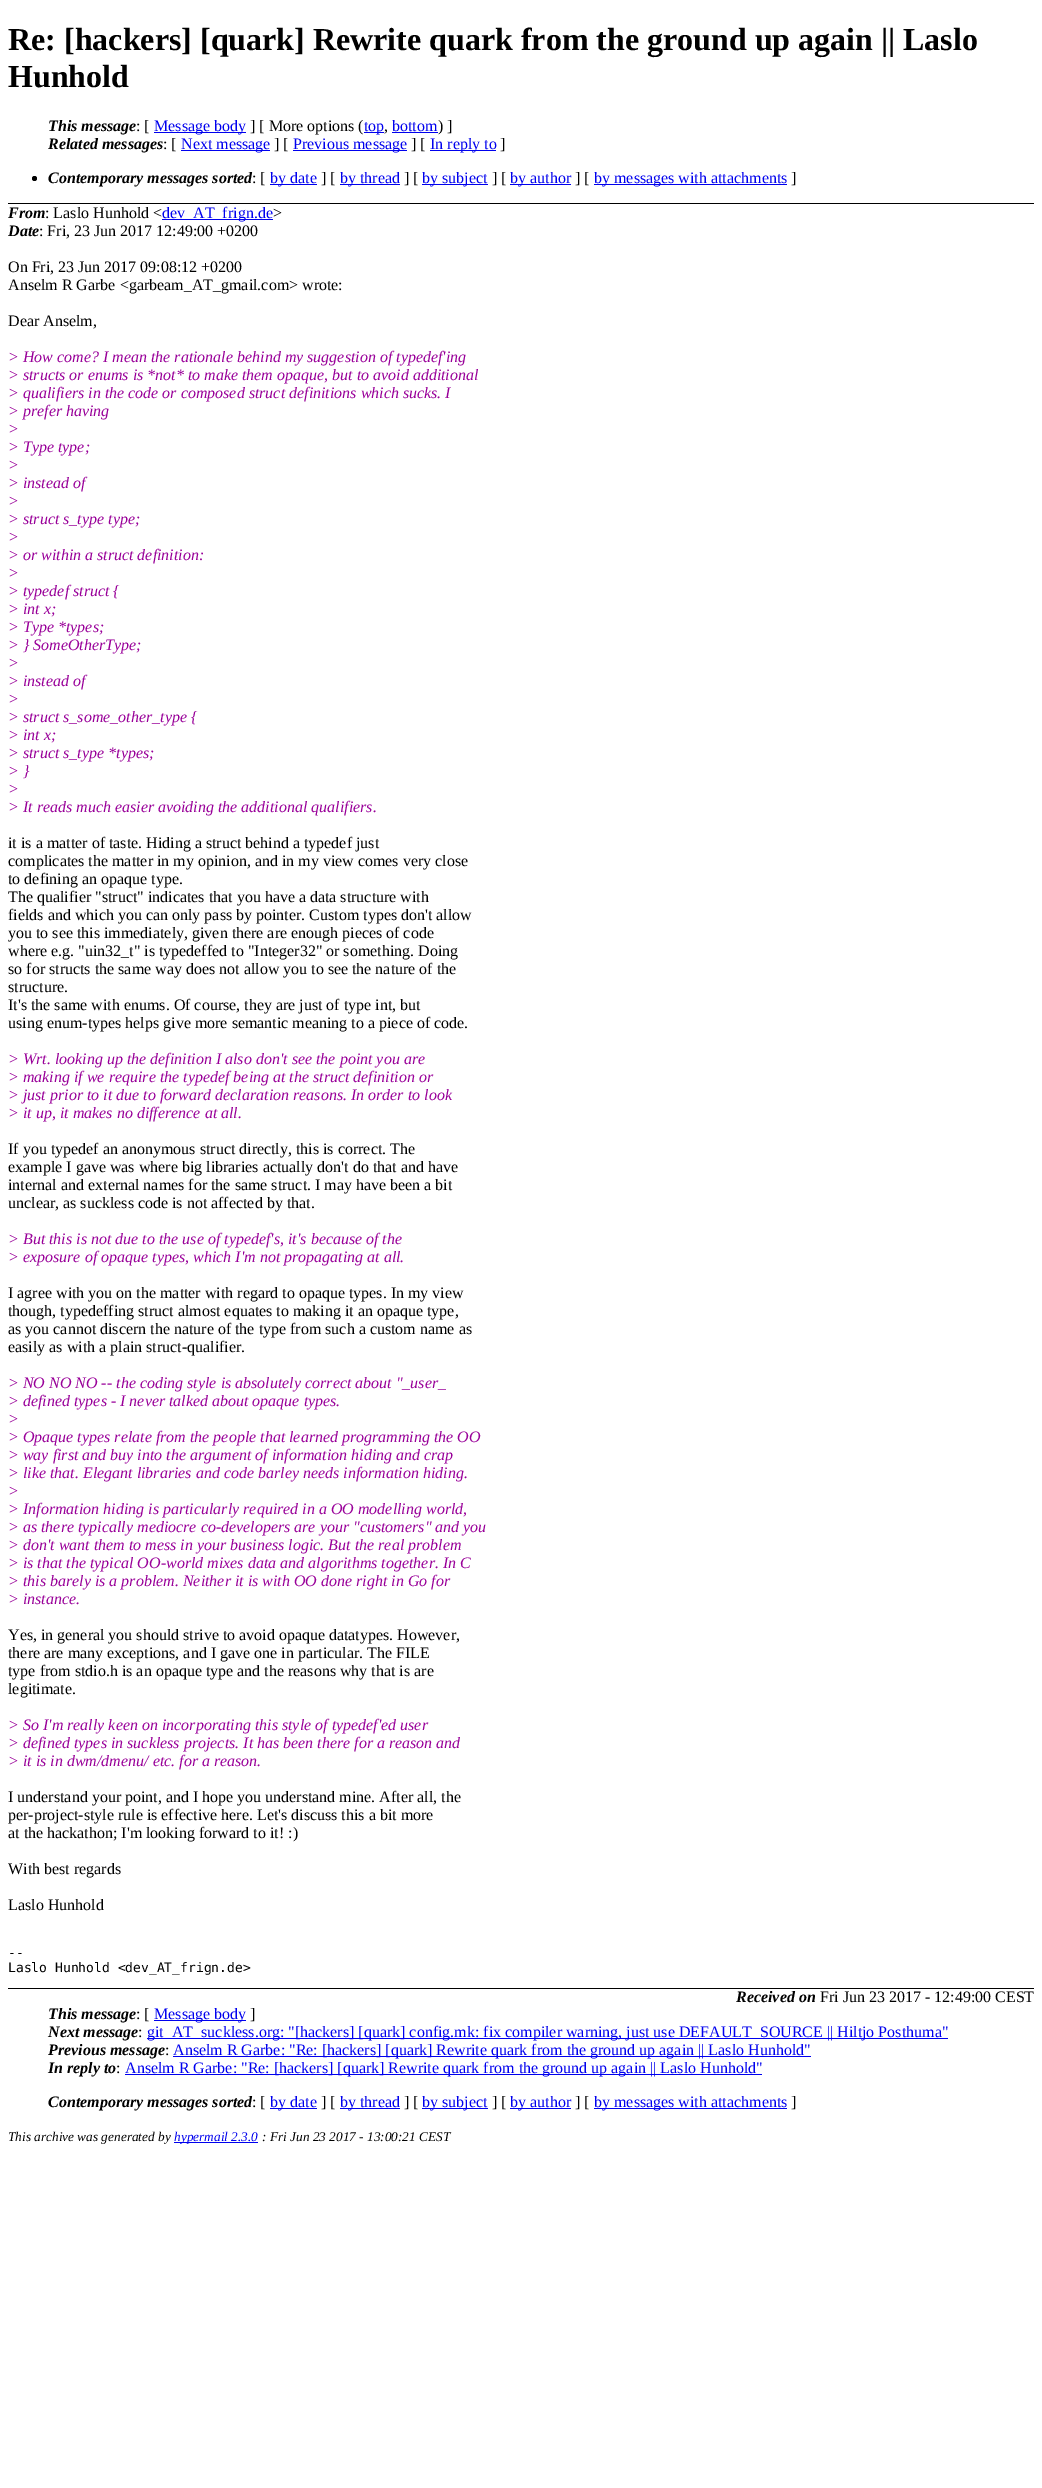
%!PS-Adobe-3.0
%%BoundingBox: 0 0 1042 2488
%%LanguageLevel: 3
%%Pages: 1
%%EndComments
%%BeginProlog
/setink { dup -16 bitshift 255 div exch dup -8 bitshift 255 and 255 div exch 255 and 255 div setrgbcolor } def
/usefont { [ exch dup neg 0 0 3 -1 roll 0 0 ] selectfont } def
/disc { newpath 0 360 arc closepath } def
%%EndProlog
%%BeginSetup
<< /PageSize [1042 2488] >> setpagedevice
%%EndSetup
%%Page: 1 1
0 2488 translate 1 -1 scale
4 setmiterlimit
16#FFFFFF setink
0 0 1042 2488 rectfill
16#000000 setink
8 203 1026 1 rectfill
/LiberationSerif-Bold 32 usefont
8 50 moveto (Re: [hackers] [quark] Rewrite quark from the ground up again || Laslo) show
8 87 moveto (Hunhold) show
/LiberationSerif-BoldItalic 16 usefont
48 131 moveto (This message) show
/LiberationSerif-Regular 16 usefont
136 131 moveto (: [) show
16#0000EE setink
154 132 92 1 rectfill
154 131 moveto (Message body) show
16#000000 setink
250 131 moveto (] [ More options \() show
16#0000EE setink
364 132 20 1 rectfill
364 131 moveto (top) show
16#000000 setink
384 131 moveto (,) show
16#0000EE setink
392 131 moveto (bottom) show
392 132 46 1 rectfill
16#000000 setink
438 131 moveto (\) ]) show
/LiberationSerif-BoldItalic 16 usefont
48 149 moveto (Related messages) show
/LiberationSerif-Regular 16 usefont
163 149 moveto (: [) show
16#0000EE setink
181 150 89 1 rectfill
181 149 moveto (Next message) show
16#000000 setink
274 149 moveto (] [) show
16#0000EE setink
293 150 114 1 rectfill
293 149 moveto (Previous message) show
16#000000 setink
411 149 moveto (] [) show
16#0000EE setink
430 150 66 1 rectfill
430 149 moveto (In reply to) show
16#000000 setink
500 149 moveto (]) show
34.5 178.5 2.5 disc fill
/LiberationSerif-BoldItalic 16 usefont
48 183 moveto (Contemporary messages sorted) show
/LiberationSerif-Regular 16 usefont
252 183 moveto (: [) show
16#0000EE setink
270 184 47 1 rectfill
270 183 moveto (by date) show
16#000000 setink
321 183 moveto (] [) show
16#0000EE setink
340 184 60 1 rectfill
340 183 moveto (by thread) show
16#000000 setink
404 183 moveto (] [) show
16#0000EE setink
422 184 66 1 rectfill
422 183 moveto (by subject) show
16#000000 setink
492 183 moveto (] [) show
16#0000EE setink
510 184 61 1 rectfill
510 183 moveto (by author) show
16#000000 setink
575 183 moveto (] [) show
16#0000EE setink
594 184 193 1 rectfill
594 183 moveto (by messages with attachments) show
16#000000 setink
791 183 moveto (]) show
/LiberationSerif-BoldItalic 16 usefont
8 218 moveto (From) show
/LiberationSerif-Regular 16 usefont
45 218 moveto (: Laslo Hunhold <) show
16#0000EE setink
162 219 111 1 rectfill
162 218 moveto (dev_AT_frign.de) show
16#000000 setink
273 218 moveto (>) show
/LiberationSerif-BoldItalic 16 usefont
8 236 moveto (Date) show
/LiberationSerif-Regular 16 usefont
[
    [(: Fri, 23 Jun 2017 12:49:00 +0200) 39 236]
    [(On Fri, 23 Jun 2017 09:08:12 +0200) 8 272]
    [(Anselm R Garbe <garbeam_AT_gmail.com> wrote:) 8 290]
    [(Dear Anselm,) 8 326]
] { aload pop moveto show } forall
/LiberationSerif-Italic 16 usefont
16#990099 setink
[
    [(> How come? I mean the rationale behind my suggestion of typedef'ing) 8 362]
    [(> structs or enums is *not* to make them opaque, but to avoid additional) 8 380]
    [(> qualifiers in the code or composed struct definitions which sucks. I) 8 398]
    [(> prefer having) 8 416]
    [(>) 8 434]
    [(> Type type;) 8 452]
    [(>) 8 470]
    [(> instead of) 8 488]
    [(>) 8 506]
    [(> struct s_type type;) 8 524]
    [(>) 8 542]
    [(> or within a struct definition:) 8 560]
    [(>) 8 578]
    [(> typedef struct {) 8 596]
    [(> int x;) 8 614]
    [(> Type *types;) 8 632]
    [(> } SomeOtherType;) 8 650]
    [(>) 8 668]
    [(> instead of) 8 686]
    [(>) 8 704]
    [(> struct s_some_other_type {) 8 722]
    [(> int x;) 8 740]
    [(> struct s_type *types;) 8 758]
    [(> }) 8 776]
    [(>) 8 794]
    [(> It reads much easier avoiding the additional qualifiers.) 8 812]
] { aload pop moveto show } forall
/LiberationSerif-Regular 16 usefont
16#000000 setink
[
    [(it is a matter of taste. Hiding a struct behind a typedef just) 8 848]
    [(complicates the matter in my opinion, and in my view comes very close) 8 866]
    [(to defining an opaque type.) 8 884]
    [(The qualifier "struct" indicates that you have a data structure with) 8 902]
    [(fields and which you can only pass by pointer. Custom types don't allow) 8 920]
    [(you to see this immediately, given there are enough pieces of code) 8 938]
    [(where e.g. "uin32_t" is typedeffed to "Integer32" or something. Doing) 8 956]
    [(so for structs the same way does not allow you to see the nature of the) 8 974]
    [(structure.) 8 992]
    [(It's the same with enums. Of course, they are just of type int, but) 8 1010]
    [(using enum-types helps give more semantic meaning to a piece of code.) 8 1028]
] { aload pop moveto show } forall
/LiberationSerif-Italic 16 usefont
16#990099 setink
[
    [(> Wrt. looking up the definition I also don't see the point you are) 8 1064]
    [(> making if we require the typedef being at the struct definition or) 8 1082]
    [(> just prior to it due to forward declaration reasons. In order to look) 8 1100]
    [(> it up, it makes no difference at all.) 8 1118]
] { aload pop moveto show } forall
/LiberationSerif-Regular 16 usefont
16#000000 setink
[
    [(If you typedef an anonymous struct directly, this is correct. The) 8 1154]
    [(example I gave was where big libraries actually don't do that and have) 8 1172]
    [(internal and external names for the same struct. I may have been a bit) 8 1190]
    [(unclear, as suckless code is not affected by that.) 8 1208]
] { aload pop moveto show } forall
/LiberationSerif-Italic 16 usefont
16#990099 setink
8 1244 moveto (> But this is not due to the use of typedef's, it's because of the) show
8 1262 moveto (> exposure of opaque types, which I'm not propagating at all.) show
/LiberationSerif-Regular 16 usefont
16#000000 setink
[
    [(I agree with you on the matter with regard to opaque types. In my view) 8 1298]
    [(though, typedeffing struct almost equates to making it an opaque type,) 8 1316]
    [(as you cannot discern the nature of the type from such a custom name as) 8 1334]
    [(easily as with a plain struct-qualifier.) 8 1352]
] { aload pop moveto show } forall
/LiberationSerif-Italic 16 usefont
16#990099 setink
[
    [(> NO NO NO -- the coding style is absolutely correct about "_user_) 8 1388]
    [(> defined types - I never talked about opaque types.) 8 1406]
    [(>) 8 1424]
    [(> Opaque types relate from the people that learned programming the OO) 8 1442]
    [(> way first and buy into the argument of information hiding and crap) 8 1460]
    [(> like that. Elegant libraries and code barley needs information hiding.) 8 1478]
    [(>) 8 1496]
    [(> Information hiding is particularly required in a OO modelling world,) 8 1514]
    [(> as there typically mediocre co-developers are your "customers" and you) 8 1532]
    [(> don't want them to mess in your business logic. But the real problem) 8 1550]
    [(> is that the typical OO-world mixes data and algorithms together. In C) 8 1568]
    [(> this barely is a problem. Neither it is with OO done right in Go for) 8 1586]
    [(> instance.) 8 1604]
] { aload pop moveto show } forall
/LiberationSerif-Regular 16 usefont
16#000000 setink
[
    [(Yes, in general you should strive to avoid opaque datatypes. However,) 8 1640]
    [(there are many exceptions, and I gave one in particular. The FILE) 8 1658]
    [(type from stdio.h is an opaque type and the reasons why that is are) 8 1676]
    [(legitimate.) 8 1694]
] { aload pop moveto show } forall
/LiberationSerif-Italic 16 usefont
16#990099 setink
[
    [(> So I'm really keen on incorporating this style of typedef'ed user) 8 1730]
    [(> defined types in suckless projects. It has been there for a reason and) 8 1748]
    [(> it is in dwm/dmenu/ etc. for a reason.) 8 1766]
] { aload pop moveto show } forall
/LiberationSerif-Regular 16 usefont
16#000000 setink
[
    [(I understand your point, and I hope you understand mine. After all, the) 8 1802]
    [(per-project-style rule is effective here. Let's discuss this a bit more) 8 1820]
    [(at the hackathon; I'm looking forward to it! :\)) 8 1838]
    [(With best regards) 8 1874]
    [(Laslo Hunhold) 8 1910]
] { aload pop moveto show } forall
/DejaVuSansMono-Regular 13 usefont
8 1957 moveto (--) show
8 1972 moveto (Laslo Hunhold <dev_AT_frign.de>) show
/LiberationSerif-BoldItalic 16 usefont
736 2002 moveto (Received on) show
/LiberationSerif-Regular 16 usefont
820 2002 moveto (Fri Jun 23 2017 - 12:49:00 CEST) show
8 1988 1026 1 rectfill
/LiberationSerif-BoldItalic 16 usefont
48 2019 moveto (This message) show
/LiberationSerif-Regular 16 usefont
136 2019 moveto (: [) show
16#0000EE setink
154 2020 92 1 rectfill
154 2019 moveto (Message body) show
16#000000 setink
250 2019 moveto (]) show
/LiberationSerif-BoldItalic 16 usefont
48 2037 moveto (Next message) show
/LiberationSerif-Regular 16 usefont
138 2037 moveto (:) show
16#0000EE setink
147 2038 801 1 rectfill
147 2037 moveto (git_AT_suckless.org: "[hackers] [quark] config.mk: fix compiler warning, just use DEFAULT_SOURCE || Hiltjo Posthuma") show
/LiberationSerif-BoldItalic 16 usefont
16#000000 setink
48 2055 moveto (Previous message) show
/LiberationSerif-Regular 16 usefont
165 2055 moveto (:) show
16#0000EE setink
173 2056 638 1 rectfill
173 2055 moveto (Anselm R Garbe: "Re: [hackers] [quark] Rewrite quark from the ground up again || Laslo Hunhold") show
/LiberationSerif-BoldItalic 16 usefont
16#000000 setink
48 2073 moveto (In reply to) show
/LiberationSerif-Regular 16 usefont
116 2073 moveto (:) show
16#0000EE setink
125 2074 637 1 rectfill
125 2073 moveto (Anselm R Garbe: "Re: [hackers] [quark] Rewrite quark from the ground up again || Laslo Hunhold") show
/LiberationSerif-BoldItalic 16 usefont
16#000000 setink
48 2107 moveto (Contemporary messages sorted) show
/LiberationSerif-Regular 16 usefont
252 2107 moveto (: [) show
16#0000EE setink
270 2108 47 1 rectfill
270 2107 moveto (by date) show
16#000000 setink
321 2107 moveto (] [) show
16#0000EE setink
340 2108 60 1 rectfill
340 2107 moveto (by thread) show
16#000000 setink
404 2107 moveto (] [) show
16#0000EE setink
422 2108 66 1 rectfill
422 2107 moveto (by subject) show
16#000000 setink
492 2107 moveto (] [) show
16#0000EE setink
510 2108 61 1 rectfill
510 2107 moveto (by author) show
16#000000 setink
575 2107 moveto (] [) show
16#0000EE setink
594 2108 193 1 rectfill
594 2107 moveto (by messages with attachments) show
16#000000 setink
791 2107 moveto (]) show
/LiberationSerif-Italic 13.3 usefont
8 2141 moveto (This archive was generated by) show
16#0000EE setink
174 2142 84 1 rectfill
174 2141 moveto (hypermail 2.3.0) show
16#000000 setink
262 2141 moveto (: Fri Jun 23 2017 - 13:00:21 CEST) show
showpage
%%EOF
